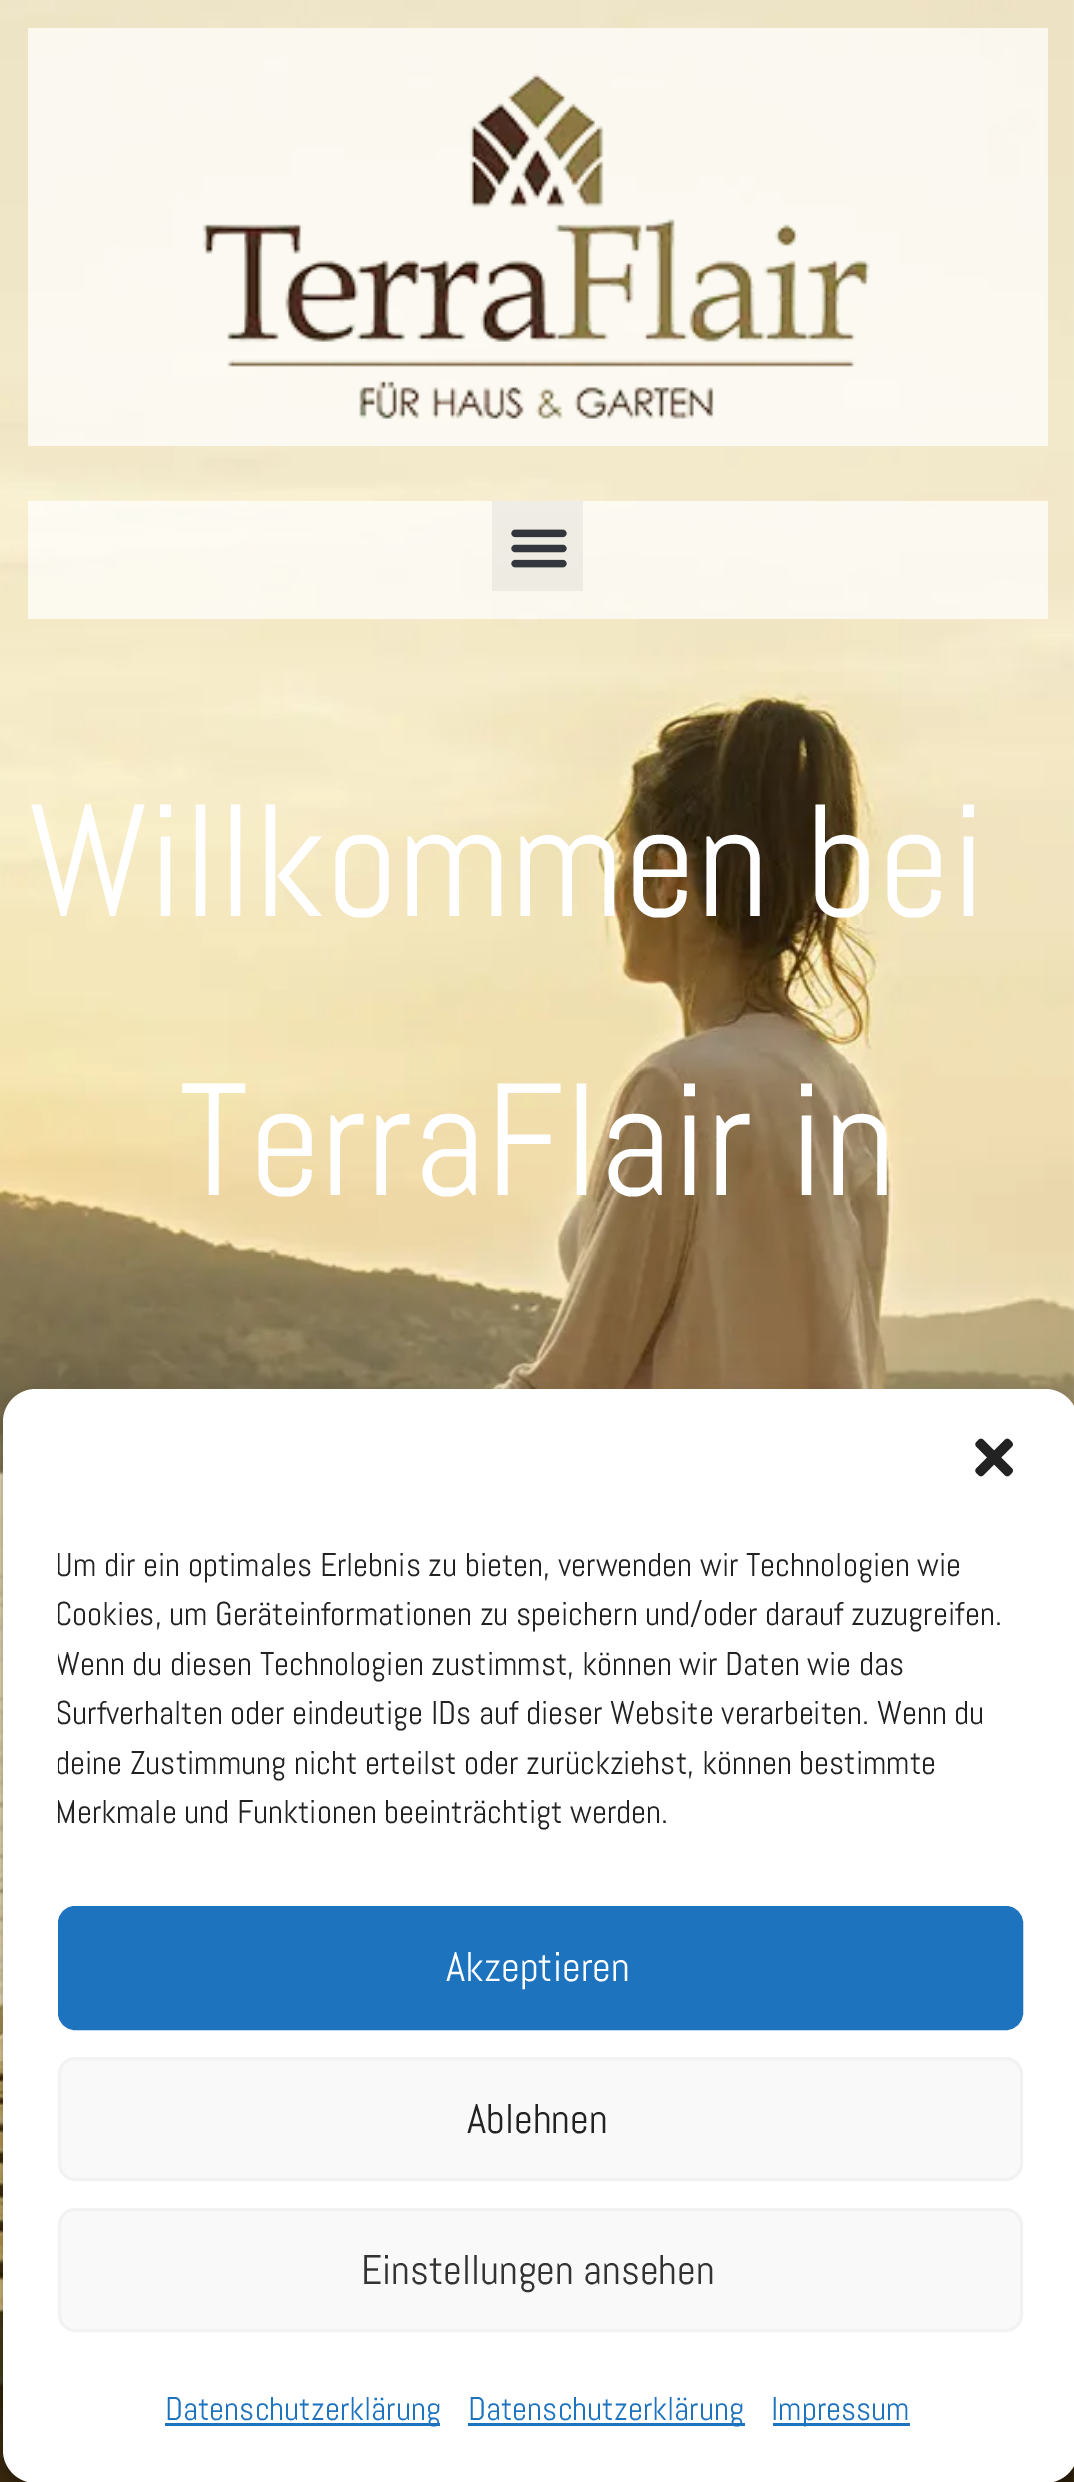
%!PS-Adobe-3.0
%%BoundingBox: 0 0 1074 2482
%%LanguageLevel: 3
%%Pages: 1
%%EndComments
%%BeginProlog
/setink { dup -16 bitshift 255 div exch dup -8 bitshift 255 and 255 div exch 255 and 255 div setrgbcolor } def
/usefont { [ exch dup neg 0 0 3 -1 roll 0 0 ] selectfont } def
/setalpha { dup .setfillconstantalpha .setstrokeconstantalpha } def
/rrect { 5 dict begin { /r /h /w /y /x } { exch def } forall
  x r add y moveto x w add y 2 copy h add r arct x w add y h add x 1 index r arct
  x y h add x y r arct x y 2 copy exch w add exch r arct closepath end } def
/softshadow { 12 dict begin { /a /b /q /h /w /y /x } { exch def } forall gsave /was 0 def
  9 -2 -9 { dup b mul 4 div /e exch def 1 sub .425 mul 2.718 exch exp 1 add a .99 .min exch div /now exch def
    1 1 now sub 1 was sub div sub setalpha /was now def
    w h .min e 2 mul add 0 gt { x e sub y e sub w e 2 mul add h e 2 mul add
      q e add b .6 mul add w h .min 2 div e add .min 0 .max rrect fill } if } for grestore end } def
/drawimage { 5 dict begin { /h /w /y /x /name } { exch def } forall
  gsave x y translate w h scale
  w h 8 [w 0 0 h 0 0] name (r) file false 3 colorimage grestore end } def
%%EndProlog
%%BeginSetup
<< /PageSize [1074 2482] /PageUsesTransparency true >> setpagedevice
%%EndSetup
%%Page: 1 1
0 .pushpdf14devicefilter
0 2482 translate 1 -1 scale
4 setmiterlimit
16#FFFFFF setink
0 0 1074 2482 rectfill
(img1.raw) 0 0 1074 2482 drawimage
0.73 setalpha
28 28 1020 418 rectfill
1 setalpha
(img2.raw) 202 73 668 346 drawimage
0.73 setalpha
28 501 1020 118 rectfill
0.05 setalpha
16#000000 setink
492 501 91 90 rectfill
1 setalpha
(img3.raw) 511 529 56 39 drawimage
/Abel-Regular 159.5 usefont
16#FFFFFF setink
28 916 moveto (Willkommen bei) show
179 1195 moveto (TerraFlair in) show
gsave
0 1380 moveto 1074 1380 lineto 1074 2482 lineto 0 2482 lineto closepath 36 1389 moveto 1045 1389 lineto 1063 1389 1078 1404 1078 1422 curveto 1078 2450 lineto 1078 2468 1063 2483 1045 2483 curveto 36 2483 lineto 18 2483 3 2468 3 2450 curveto 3 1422 lineto 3 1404 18 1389 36 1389 curveto closepath eoclip newpath
16#000000 setink
3 1405 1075 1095 33 8 0.23 softshadow
grestore
gsave
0 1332 moveto 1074 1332 lineto 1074 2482 lineto 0 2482 lineto closepath 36 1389 moveto 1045 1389 lineto 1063 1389 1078 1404 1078 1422 curveto 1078 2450 lineto 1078 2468 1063 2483 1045 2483 curveto 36 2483 lineto 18 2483 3 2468 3 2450 curveto 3 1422 lineto 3 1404 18 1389 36 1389 curveto closepath eoclip newpath
16#000000 setink
3 1416 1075 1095 33 27.5 0.19 softshadow
grestore
3 1389 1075 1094 33 rrect fill
(img4.raw) 975 1438 38 39 drawimage
gsave
58 1540 965 311 rectclip
/Abel-Regular 33 usefont
16#222222 setink
[
    [(Um dir ein optimales Erlebnis zu bieten, verwenden wir Technologien wie) 55 1576]
    [(Cookies, um Geräteinformationen zu speichern und/oder darauf zuzugreifen.) 55 1625]
    [(Wenn du diesen Technologien zustimmst, können wir Daten wie das) 55 1675]
    [(Surfverhalten oder eindeutige IDs auf dieser Website verarbeiten. Wenn du) 55 1724]
    [(deine Zustimmung nicht erteilst oder zurückziehst, können bestimmte) 55 1774]
    [(Merkmale und Funktionen beeinträchtigt werden.) 55 1823]
] { aload pop moveto show } forall
grestore
16#1E73BE setink
59.5 1907.5 962 121 15.5 rrect gsave fill grestore
3 setlinewidth
stroke
/Abel-Regular 41.25 usefont
16#FFFFFF setink
446 1981 moveto (Akzeptieren) show
16#F9F9F9 setink
59.5 2058.5 962 121 15.5 rrect gsave fill grestore
16#F2F2F2 setink
stroke
16#222222 setink
467 2133 moveto (Ablehnen) show
16#F9F9F9 setink
59.5 2209.5 962 121 15.5 rrect gsave fill grestore
16#F2F2F2 setink
stroke
16#333333 setink
361 2284 moveto (Einstellungen ansehen) show
16#1E73BE setink
165 2423 275 3 rectfill
/Abel-Regular 33 usefont
165 2420 moveto (Datenschutzerklärung) show
468 2423 277 3 rectfill
468 2420 moveto (Datenschutzerklärung) show
773 2423 137 3 rectfill
771 2420 moveto (Impressum) show
.poppdf14devicefilter showpage
%%EOF
